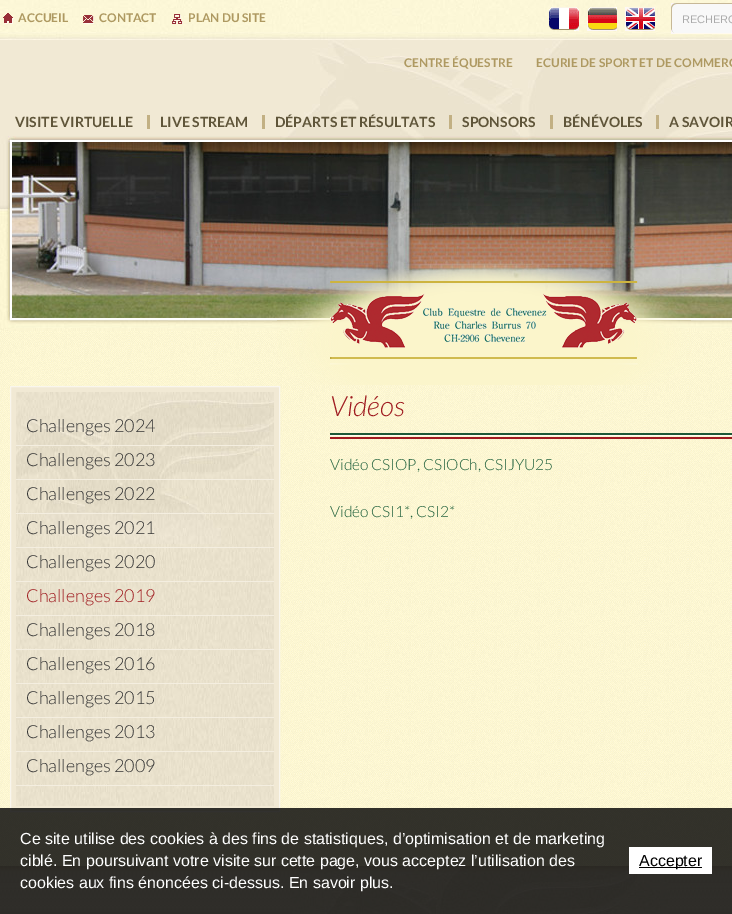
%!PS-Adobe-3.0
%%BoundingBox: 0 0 732 914
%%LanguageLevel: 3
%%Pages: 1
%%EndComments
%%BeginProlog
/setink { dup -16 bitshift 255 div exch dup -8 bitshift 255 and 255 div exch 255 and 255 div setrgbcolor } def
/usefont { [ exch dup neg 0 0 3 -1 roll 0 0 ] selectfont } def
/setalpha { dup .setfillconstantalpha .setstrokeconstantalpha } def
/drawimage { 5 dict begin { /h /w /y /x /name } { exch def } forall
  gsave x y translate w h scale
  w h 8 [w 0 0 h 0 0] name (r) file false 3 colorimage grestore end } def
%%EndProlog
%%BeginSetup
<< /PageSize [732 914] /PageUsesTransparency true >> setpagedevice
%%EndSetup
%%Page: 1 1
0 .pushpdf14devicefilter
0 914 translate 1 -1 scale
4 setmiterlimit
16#FFFFFF setink
0 0 732 914 rectfill
(img1.raw) 0 331 732 535 drawimage
(img2.raw) 0 0 732 331 drawimage
(img3.raw) 3 13 11 11 drawimage
/Lato-Bold 12 usefont
16#AE9961 setink
18 22 moveto (ACCUEIL) show
(img4.raw) 83 15 11 9 drawimage
99 22 moveto (CONTACT) show
(img5.raw) 172 14 11 10 drawimage
188 22 moveto (PLAN DU SITE) show
(img6.raw) 549 7 30 24 drawimage
(img7.raw) 587 7 30 24 drawimage
(img8.raw) 625 7 30 24 drawimage
(img9.raw) 671 3 61 31 drawimage
/LiberationSans-Regular 11 usefont
16#AAAAAA setink
682 23 moveto (RECHERC) show
/Lato-Bold 12 usefont
16#AE9961 setink
404 67 moveto (CENTRE ÉQUESTRE) show
536 67 moveto (ECURIE DE SPORT ET DE COMMERC) show
/Lato-Bold 14 usefont
16#5F5539 setink
15 127 moveto (VISITE VIRTUELLE) show
160 127 moveto (LIVE STREAM) show
16#C2B083 setink
147 115 3 14 rectfill
16#5F5539 setink
275 127 moveto (DÉPARTS ET RÉSULTATS) show
16#C2B083 setink
262 115 3 14 rectfill
16#5F5539 setink
462 127 moveto (SPONSORS) show
16#C2B083 setink
449 115 3 14 rectfill
16#5F5539 setink
563 127 moveto (BÉNÉVOLES) show
16#C2B083 setink
550 115 3 14 rectfill
16#5F5539 setink
669 127 moveto (A SAVOIR) show
16#C2B083 setink
656 115 3 14 rectfill
16#FFFFFF setink
2 setlinewidth
11 141 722 178 rectstroke
(img10.raw) 12 142 720 176 drawimage
(img11.raw) 277 260 414 125 drawimage
16#F1E9D4 setink
10.5 386.5 moveto 279.5 386.5 lineto 279.5 811.5 lineto 10.5 811.5 lineto closepath gsave fill grestore
16#F9F6ED setink
1 setlinewidth
stroke
(img12.raw) 16 392 258 414 drawimage
16#F4EEE0 setink
16 445 258 1 rectfill
/Lato-Light 18 usefont
16#333333 setink
26 432 moveto (Challenges 2024) show
16#F4EEE0 setink
16 479 258 1 rectfill
16#333333 setink
26 466 moveto (Challenges 2023) show
16#F4EEE0 setink
16 513 258 1 rectfill
16#333333 setink
26 500 moveto (Challenges 2022) show
16#F4EEE0 setink
16 547 258 1 rectfill
16#333333 setink
26 534 moveto (Challenges 2021) show
16#F4EEE0 setink
16 581 258 1 rectfill
16#333333 setink
26 568 moveto (Challenges 2020) show
16#F4EEE0 setink
16 615 258 1 rectfill
16#9F1B20 setink
26 602 moveto (Challenges 2019) show
16#F4EEE0 setink
16 649 258 1 rectfill
16#333333 setink
26 636 moveto (Challenges 2018) show
16#F4EEE0 setink
16 683 258 1 rectfill
16#333333 setink
26 670 moveto (Challenges 2016) show
16#F4EEE0 setink
16 717 258 1 rectfill
16#333333 setink
26 704 moveto (Challenges 2015) show
16#F4EEE0 setink
16 751 258 1 rectfill
16#333333 setink
26 738 moveto (Challenges 2013) show
16#F4EEE0 setink
16 785 258 1 rectfill
16#333333 setink
26 772 moveto (Challenges 2009) show
(img13.raw) 330 433 402 6 drawimage
/Lato-LightItalic 28 usefont
16#9F1B20 setink
330 416 moveto (Vidéos) show
/Lato-Light 15.5 usefont
16#1F603B setink
330 470 moveto (Vidéo CSIOP, CSIOCh, CSIJYU25) show
330 517 moveto (Vidéo CSI1*, CSI2*) show
(img14.raw) 0 866 732 48 drawimage
(img15.raw) 292 866 376 48 drawimage
0.8 setalpha
16#000000 setink
0 808 732 106 rectfill
/LiberationSans-Regular 16 usefont
1 setalpha
16#FFFFFF setink
[
    [(Ce site utilise des cookies à des fins de statistiques, d’optimisation et de marketing) 20 844]
    [(ciblé. En poursuivant votre visite sur cette page, vous acceptez l’utilisation des) 20 866]
    [(cookies aux fins énoncées ci-dessus. En savoir plus.) 20 888]
] { aload pop moveto show } forall
629 847 83 27 rectfill
16#000000 setink
639 867 63 1 rectfill
639 866 moveto (Accepter) show
.poppdf14devicefilter showpage
%%EOF
